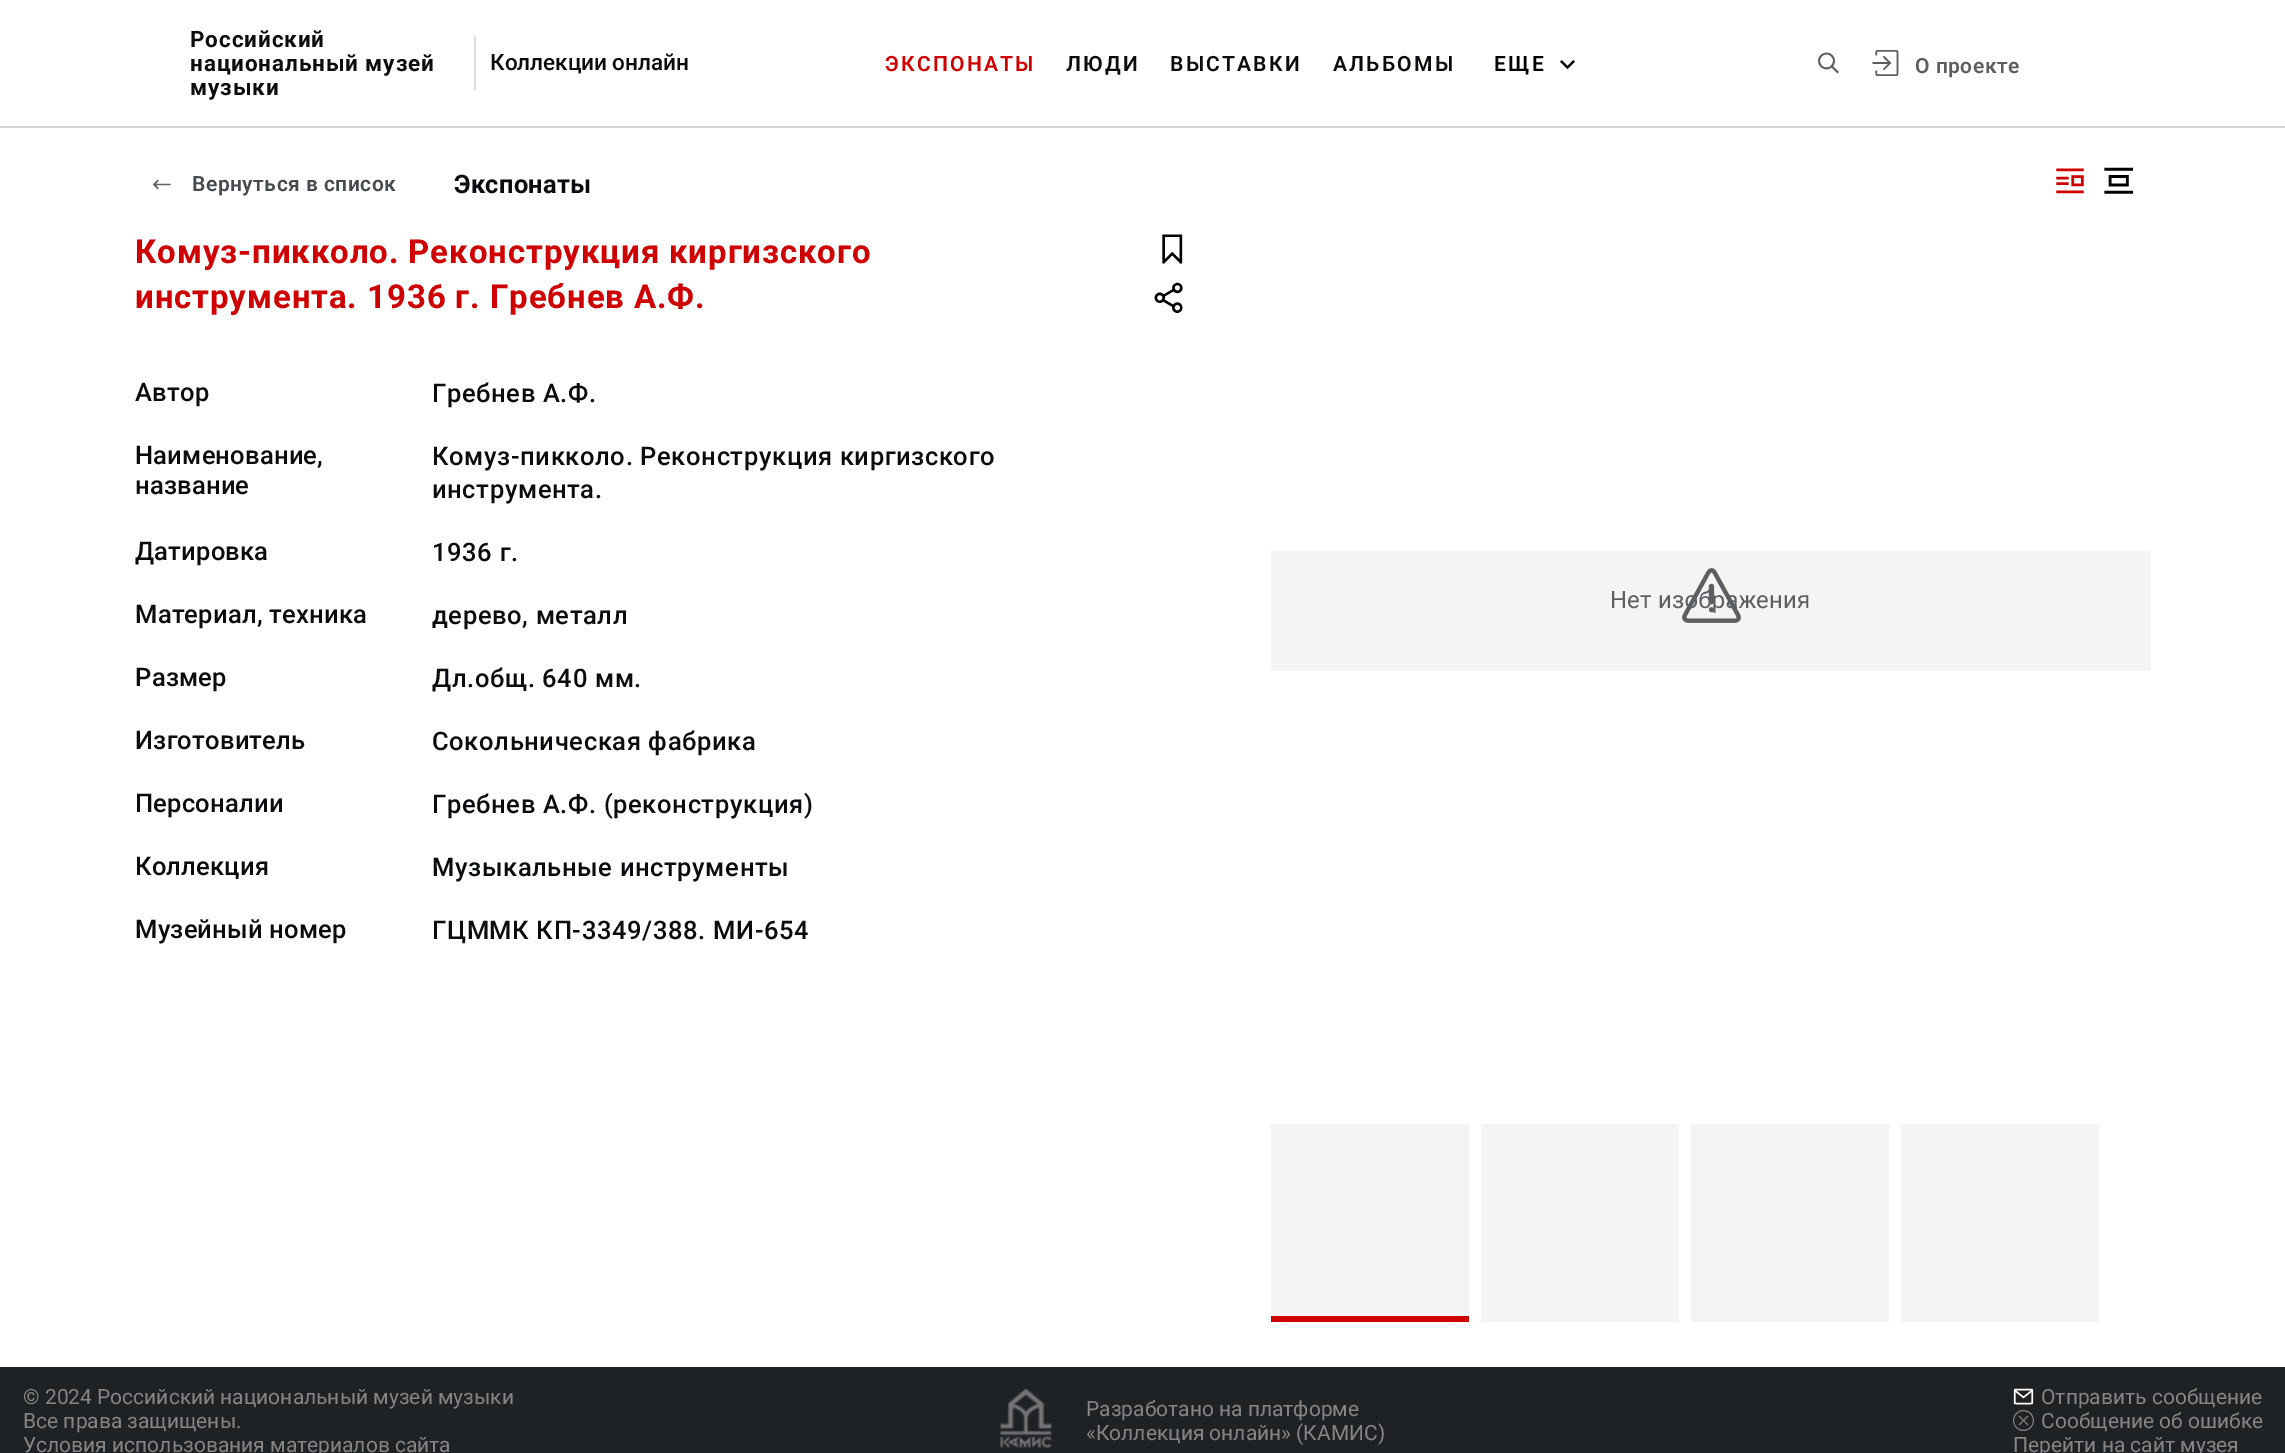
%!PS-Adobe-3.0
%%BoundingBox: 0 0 2285 1453
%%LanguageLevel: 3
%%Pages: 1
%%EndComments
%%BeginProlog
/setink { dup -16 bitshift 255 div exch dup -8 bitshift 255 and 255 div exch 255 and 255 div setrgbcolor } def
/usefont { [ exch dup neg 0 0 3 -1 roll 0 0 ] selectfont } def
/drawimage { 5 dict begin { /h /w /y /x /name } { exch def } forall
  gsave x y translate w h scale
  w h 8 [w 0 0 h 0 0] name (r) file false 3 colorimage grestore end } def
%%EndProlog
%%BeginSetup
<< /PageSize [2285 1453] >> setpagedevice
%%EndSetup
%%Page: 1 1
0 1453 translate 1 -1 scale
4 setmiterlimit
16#FFFFFF setink
0 0 2285 1453 rectfill
16#D3D3D3 setink
0 126 2285 2 rectfill
/Roboto-Bold 22.5 usefont
16#0A0D10 setink
190 47 moveto 0.9 0 (Российский) ashow
190 71 moveto 0.9 0 (национальный музей) ashow
190 95 moveto 0.9 0 (музыки) ashow
16#DEDEDE setink
474 36 2 54 rectfill
/Roboto-Medium 22.5 usefont
16#0A0D10 setink
490 70 moveto (Коллекции онлайн) show
/Roboto-SemiBold 21 usefont
16#CF0000 setink
885 71 moveto 2.25 0 (ЭКСПОНАТЫ) ashow
16#0A0D10 setink
1066 71 moveto 2.25 0 (ЛЮДИ) ashow
1170 71 moveto 2.25 0 (ВЫСТАВКИ) ashow
1333 71 moveto 2.25 0 (АЛЬБОМЫ) ashow
16#000000 setink
1494 71 moveto 2.25 0 (ЕЩЕ) ashow
(img1.raw) 1560 60 15 9 drawimage
(img2.raw) 1818 52 21 22 drawimage
(img3.raw) 1872 50 27 26 drawimage
16#5C5F62 setink
1915 73 moveto 0.5 0 (О проекте) ashow
(img4.raw) 152 179 19 11 drawimage
16#444A50 setink
192 191 moveto 0.5 0 (Вернуться в список) ashow
/Roboto-Bold 25.5 usefont
16#0A0D10 setink
454 193 moveto 0.25 0 (Экспонаты) ashow
(img5.raw) 2056 168 28 26 drawimage
(img6.raw) 2104 167 30 27 drawimage
/Roboto-Bold 33 usefont
16#CF0000 setink
135 263 moveto 0.9 0 (Комуз-пикколо. Реконструкция киргизского) ashow
135 308 moveto 0.9 0 (инструмента. 1936 г. Гребнев А.Ф.) ashow
(img7.raw) 1162 234 21 30 drawimage
(img8.raw) 1154 282 29 31 drawimage
/Roboto-Medium 25.5 usefont
16#0A0D10 setink
135 401 moveto 0.25 0 (Автор) ashow
432 402 moveto 0.65 0 (Гребнев А.Ф.) ashow
135 464 moveto 0.25 0 (Наименование,) ashow
135 494 moveto 0.25 0 (название) ashow
432 465 moveto 0.65 0 (Комуз-пикколо. Реконструкция киргизского) ashow
432 498 moveto 0.65 0 (инструмента.) ashow
135 560 moveto 0.25 0 (Датировка) ashow
432 561 moveto 0.65 0 (1936 г.) ashow
135 623 moveto 0.25 0 (Материал, техника) ashow
432 624 moveto 0.65 0 (дерево, металл) ashow
135 686 moveto 0.25 0 (Размер) ashow
432 687 moveto 0.65 0 (Дл.общ. 640 мм.) ashow
135 749 moveto 0.25 0 (Изготовитель) ashow
432 750 moveto 0.65 0 (Сокольническая фабрика) ashow
135 812 moveto 0.25 0 (Персоналии) ashow
432 813 moveto 0.65 0 (Гребнев А.Ф. \(реконструкция\)) ashow
135 875 moveto 0.25 0 (Коллекция) ashow
432 876 moveto 0.65 0 (Музыкальные инструменты) ashow
135 938 moveto 0.25 0 (Музейный номер) ashow
432 939 moveto 0.65 0 (ГЦММК КП-3349/388. МИ-654) ashow
16#F4F4F5 setink
1271 551 880 120 rectfill
/Roboto-Regular 24 usefont
16#5C5F62 setink
1610 608 moveto 0.1 0 (Нет изображения) ashow
(img9.raw) 1682 568 59 55 drawimage
[
    [1271 1124 198 192 16#F4F4F5]
    [1271 1316 198 6 16#CF0000]
    [1481 1124 198 198 16#F4F4F5]
    [1691 1124 198 198 16#F4F4F5]
    [1901 1124 198 198 16#F4F4F5]
    [0 1367 2285 86 16#1F2224]
] { aload pop setink rectfill } forall
/Roboto-Regular 21 usefont
16#858585 setink
[
    [(© 2024 Российский национальный музей музыки) 23 1404]
    [(Все права защищены.) 23 1428]
    [(Условия использования материалов сайта) 23 1452]
] { aload pop moveto show } forall
(img10.raw) 1000 1388 52 60 drawimage
1086 1416 moveto (Разработано на платформе) show
1086 1440 moveto («Коллекция онлайн» \(КАМИС\)) show
(img11.raw) 2013 1388 21 17 drawimage
2041 1404 moveto (Отправить сообщение) show
(img12.raw) 2013 1410 21 21 drawimage
2041 1428 moveto (Сообщение об ошибке) show
2013 1452 moveto (Перейти на сайт музея) show
showpage
%%EOF
